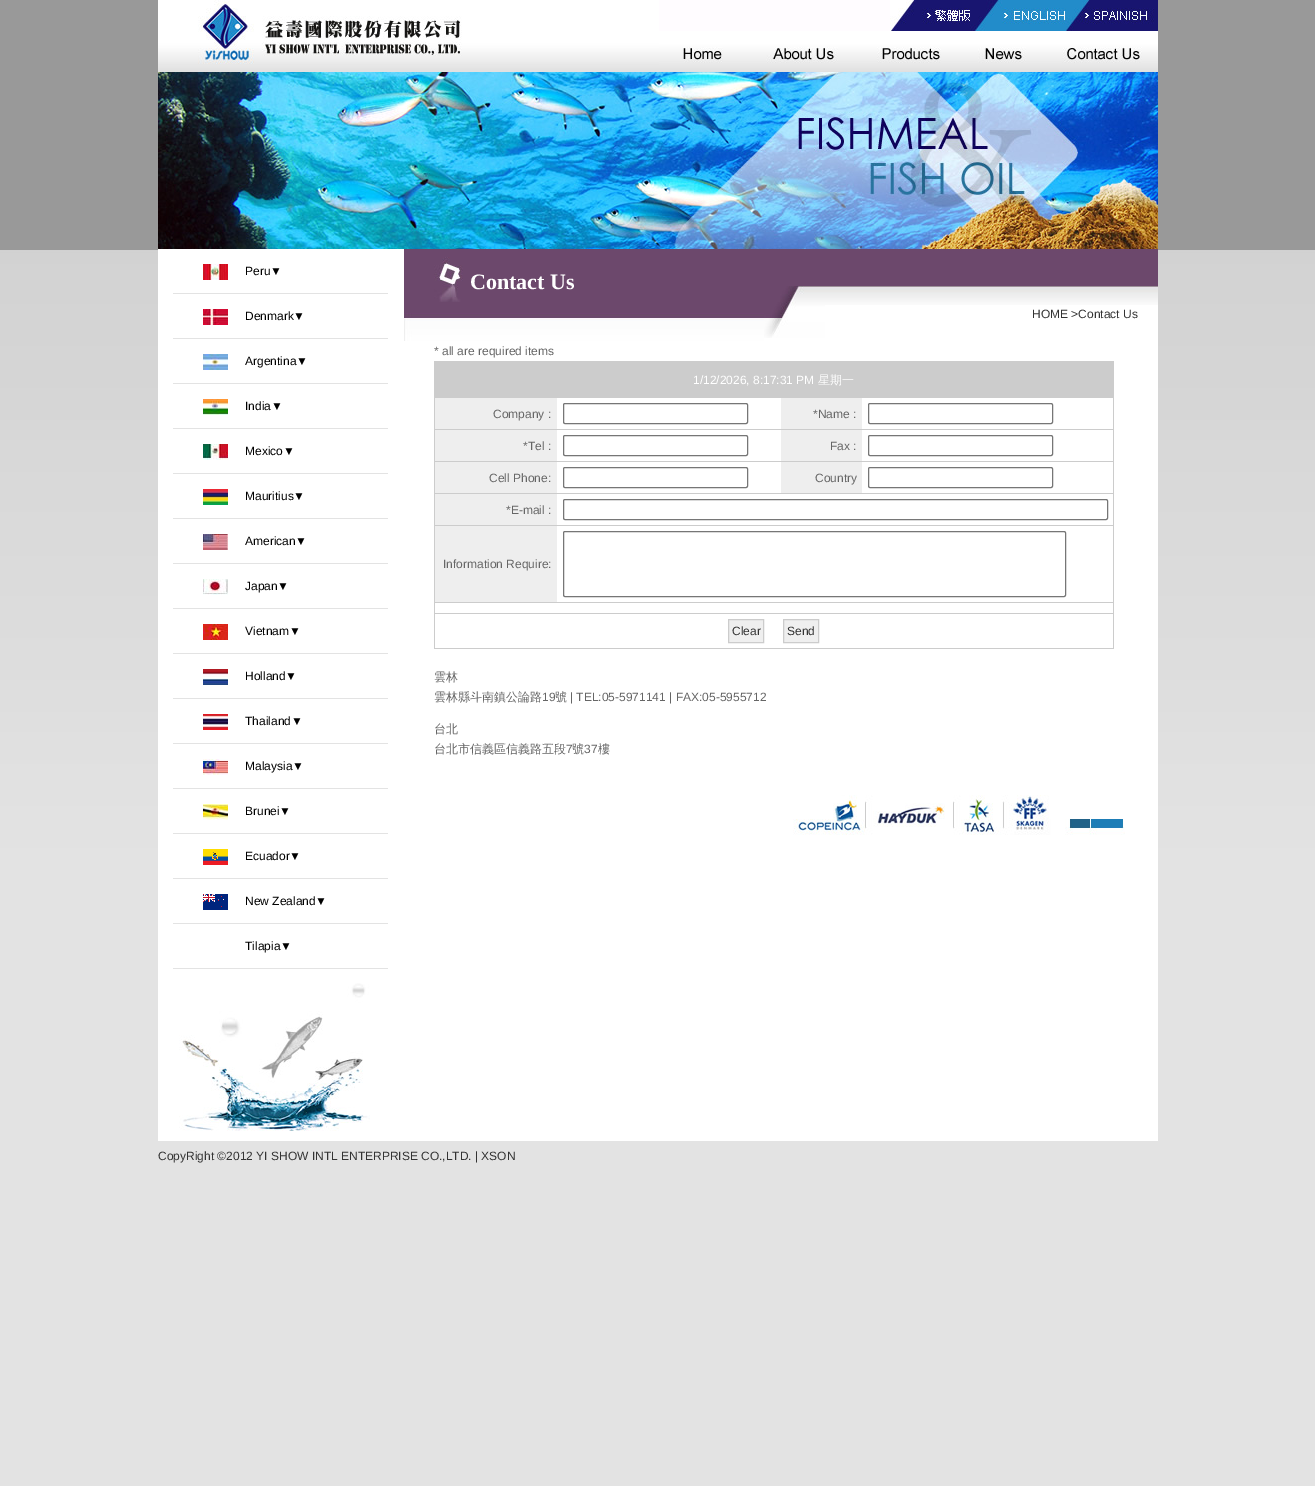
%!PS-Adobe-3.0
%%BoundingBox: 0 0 1315 1486
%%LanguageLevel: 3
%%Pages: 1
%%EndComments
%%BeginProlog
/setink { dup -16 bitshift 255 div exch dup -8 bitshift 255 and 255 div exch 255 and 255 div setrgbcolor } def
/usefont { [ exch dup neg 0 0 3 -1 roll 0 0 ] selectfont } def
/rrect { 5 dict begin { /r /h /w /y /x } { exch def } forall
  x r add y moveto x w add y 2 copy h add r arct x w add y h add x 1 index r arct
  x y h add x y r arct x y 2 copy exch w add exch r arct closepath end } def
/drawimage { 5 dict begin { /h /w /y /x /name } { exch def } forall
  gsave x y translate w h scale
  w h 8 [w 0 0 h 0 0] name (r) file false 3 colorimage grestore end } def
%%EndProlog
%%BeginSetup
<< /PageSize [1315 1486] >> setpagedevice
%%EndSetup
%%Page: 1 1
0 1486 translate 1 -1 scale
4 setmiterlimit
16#FFFFFF setink
0 0 1315 1486 rectfill
(img1.raw) 0 0 1315 1486 drawimage
(img2.raw) 158 0 501 72 drawimage
16#FFFCFF setink
659 0 231 31 rectfill
(img3.raw) 890 0 268 31 drawimage
(img4.raw) 659 31 91 41 drawimage
(img5.raw) 750 31 119 41 drawimage
(img6.raw) 869 31 85 41 drawimage
(img7.raw) 954 31 84 41 drawimage
(img8.raw) 1038 31 120 41 drawimage
(img9.raw) 158 72 1000 177 drawimage
16#FFFFFF setink
158 249 1000 892 rectfill
16#E3E3E3 setink
173 293 215 1 rectfill
(img10.raw) 203 264 25 16 drawimage
/LiberationSans-Regular 12 usefont
16#000000 setink
245 275 moveto (Peru) show
/LiberationSerif-Regular 12 usefont
270 275 moveto (▼) show
16#E3E3E3 setink
173 338 215 1 rectfill
(img11.raw) 203 309 25 16 drawimage
/LiberationSans-Regular 12 usefont
16#000000 setink
245 320 moveto (Denmark) show
/LiberationSerif-Regular 12 usefont
293 320 moveto (▼) show
16#E3E3E3 setink
173 383 215 1 rectfill
(img12.raw) 203 354 25 16 drawimage
/LiberationSans-Regular 12 usefont
16#000000 setink
245 365 moveto (Argentina) show
/LiberationSerif-Regular 12 usefont
296 365 moveto (▼) show
16#E3E3E3 setink
173 428 215 1 rectfill
(img13.raw) 203 399 25 16 drawimage
/LiberationSans-Regular 12 usefont
16#000000 setink
245 410 moveto (India) show
/LiberationSerif-Regular 12 usefont
271 410 moveto (▼) show
16#E3E3E3 setink
173 473 215 1 rectfill
(img14.raw) 203 444 25 16 drawimage
/LiberationSans-Regular 12 usefont
16#000000 setink
245 455 moveto (Mexico) show
/LiberationSerif-Regular 12 usefont
283 455 moveto (▼) show
16#E3E3E3 setink
173 518 215 1 rectfill
(img15.raw) 203 489 25 16 drawimage
/LiberationSans-Regular 12 usefont
16#000000 setink
245 500 moveto (Mauritius) show
/LiberationSerif-Regular 12 usefont
293 500 moveto (▼) show
16#E3E3E3 setink
173 563 215 1 rectfill
(img16.raw) 203 534 25 16 drawimage
/LiberationSans-Regular 12 usefont
16#000000 setink
245 545 moveto (American) show
/LiberationSerif-Regular 12 usefont
295 545 moveto (▼) show
16#E3E3E3 setink
173 608 215 1 rectfill
(img17.raw) 203 579 25 16 drawimage
/LiberationSans-Regular 12 usefont
16#000000 setink
245 590 moveto (Japan) show
/LiberationSerif-Regular 12 usefont
277 590 moveto (▼) show
16#E3E3E3 setink
173 653 215 1 rectfill
(img18.raw) 203 624 25 16 drawimage
/LiberationSans-Regular 12 usefont
16#000000 setink
245 635 moveto (Vietnam) show
/LiberationSerif-Regular 12 usefont
289 635 moveto (▼) show
16#E3E3E3 setink
173 698 215 1 rectfill
(img19.raw) 203 669 25 16 drawimage
/LiberationSans-Regular 12 usefont
16#000000 setink
245 680 moveto (Holland) show
/LiberationSerif-Regular 12 usefont
285 680 moveto (▼) show
16#E3E3E3 setink
173 743 215 1 rectfill
(img20.raw) 203 714 25 16 drawimage
/LiberationSans-Regular 12 usefont
16#000000 setink
245 725 moveto (Thailand) show
/LiberationSerif-Regular 12 usefont
291 725 moveto (▼) show
16#E3E3E3 setink
173 788 215 1 rectfill
(img21.raw) 203 759 25 16 drawimage
/LiberationSans-Regular 12 usefont
16#000000 setink
245 770 moveto (Malaysia) show
/LiberationSerif-Regular 12 usefont
292 770 moveto (▼) show
16#E3E3E3 setink
173 833 215 1 rectfill
(img22.raw) 203 804 25 16 drawimage
/LiberationSans-Regular 12 usefont
16#000000 setink
245 815 moveto (Brunei) show
/LiberationSerif-Regular 12 usefont
279 815 moveto (▼) show
16#E3E3E3 setink
173 878 215 1 rectfill
(img23.raw) 203 849 25 16 drawimage
/LiberationSans-Regular 12 usefont
16#000000 setink
245 860 moveto (Ecuador) show
/LiberationSerif-Regular 12 usefont
289 860 moveto (▼) show
16#E3E3E3 setink
173 923 215 1 rectfill
(img24.raw) 203 894 25 16 drawimage
/LiberationSans-Regular 12 usefont
16#000000 setink
245 905 moveto (New Zealand) show
/LiberationSerif-Regular 12 usefont
315 905 moveto (▼) show
16#E3E3E3 setink
173 968 215 1 rectfill
/LiberationSans-Regular 12 usefont
16#000000 setink
245 950 moveto (Tilapia) show
/LiberationSerif-Regular 12 usefont
280 950 moveto (▼) show
(img25.raw) 179 983 191 148 drawimage
(img26.raw) 404 249 360 92 drawimage
(img27.raw) 434 257 29 45 drawimage
/LiberationSerif-Bold 22 usefont
16#FFFFFF setink
470 289 moveto (Contact Us) show
16#6C486C setink
764 249 394 37 rectfill
(img28.raw) 764 286 61 52 drawimage
(img29.raw) 825 286 333 19 drawimage
/LiberationSans-Regular 12 usefont
16#333333 setink
1032 318 moveto (HOME >Contact Us) show
16#666666 setink
434 355 moveto (* all are required items) show
16#CCCCCC setink
434 361 680 288 rectfill
16#FFFFFF setink
693 384 moveto (1/12/2026, 8:17:31 PM) show
/WenQuanYiZenHei-Medium 12 usefont
818 384 moveto (星期一) show
557 398 556 31 rectfill
16#EEEEEE setink
435 398 122 31 rectfill
/LiberationSans-Regular 12 usefont
16#666666 setink
493 418 moveto (Company :) show
16#767676 setink
563.5 403.5 184 20 1.5 rrect stroke
16#EEEEEE setink
781 398 81 31 rectfill
16#666666 setink
813 418 moveto (*Name :) show
16#767676 setink
868.5 403.5 184 20 1.5 rrect stroke
16#FFFFFF setink
557 430 556 31 rectfill
16#EEEEEE setink
435 430 122 31 rectfill
16#666666 setink
523 450 moveto (*Tel :) show
16#767676 setink
563.5 435.5 184 20 1.5 rrect stroke
16#EEEEEE setink
781 430 81 31 rectfill
16#666666 setink
830 450 moveto (Fax :) show
16#767676 setink
868.5 435.5 184 20 1.5 rrect stroke
16#FFFFFF setink
557 462 556 31 rectfill
16#EEEEEE setink
435 462 122 31 rectfill
16#666666 setink
489 482 moveto (Cell Phone:) show
16#767676 setink
563.5 467.5 184 20 1.5 rrect stroke
16#EEEEEE setink
781 462 81 31 rectfill
16#666666 setink
815 482 moveto (Country) show
16#767676 setink
868.5 467.5 184 20 1.5 rrect stroke
16#FFFFFF setink
557 494 556 31 rectfill
16#EEEEEE setink
435 494 122 31 rectfill
16#666666 setink
506 514 moveto (*E-mail :) show
16#767676 setink
563.5 499.5 544 20 1.5 rrect stroke
16#FFFFFF setink
557 526 556 76 rectfill
16#EEEEEE setink
435 526 122 76 rectfill
16#666666 setink
443 568 moveto (Information Require:) show
16#767676 setink
563.5 531.5 502 65 1.5 rrect stroke
16#FFFFFF setink
435 603 678 10 rectfill
435 614 678 34 rectfill
16#EFEFEF setink
728.5 619.5 moveto 763.5 619.5 lineto 763.5 642.5 lineto 728.5 642.5 lineto closepath gsave fill grestore
16#CCCCCC setink
stroke
16#333333 setink
732 635 moveto (Clear) show
16#EFEFEF setink
783.5 619.5 moveto 818.5 619.5 lineto 818.5 642.5 lineto 783.5 642.5 lineto closepath gsave fill grestore
16#CCCCCC setink
stroke
16#333333 setink
787 635 moveto (Send) show
/WenQuanYiZenHei-Medium 12 usefont
16#666666 setink
434 681 moveto (雲林) show
434 701 moveto (雲林縣斗南鎮公論路) show
/LiberationSans-Regular 12 usefont
542 701 moveto (19) show
/WenQuanYiZenHei-Medium 12 usefont
555 701 moveto (號) show
/LiberationSans-Regular 12 usefont
570 701 moveto (| TEL:05-5971141 | FAX:05-5955712) show
/WenQuanYiZenHei-Medium 12 usefont
434 733 moveto (台北) show
434 753 moveto (台北市信義區信義路五段) show
/LiberationSans-Regular 12 usefont
566 753 moveto (7) show
/WenQuanYiZenHei-Medium 12 usefont
572 753 moveto (號) show
/LiberationSans-Regular 12 usefont
584 753 moveto (37) show
/WenQuanYiZenHei-Medium 12 usefont
598 753 moveto (樓) show
(img30.raw) 793 795 332 40 drawimage
/LiberationSans-Regular 12 usefont
16#333333 setink
158 1160 moveto (CopyRight ©2012 YI SHOW INTL ENTERPRISE CO.,LTD. | XSON) show
showpage
%%EOF
